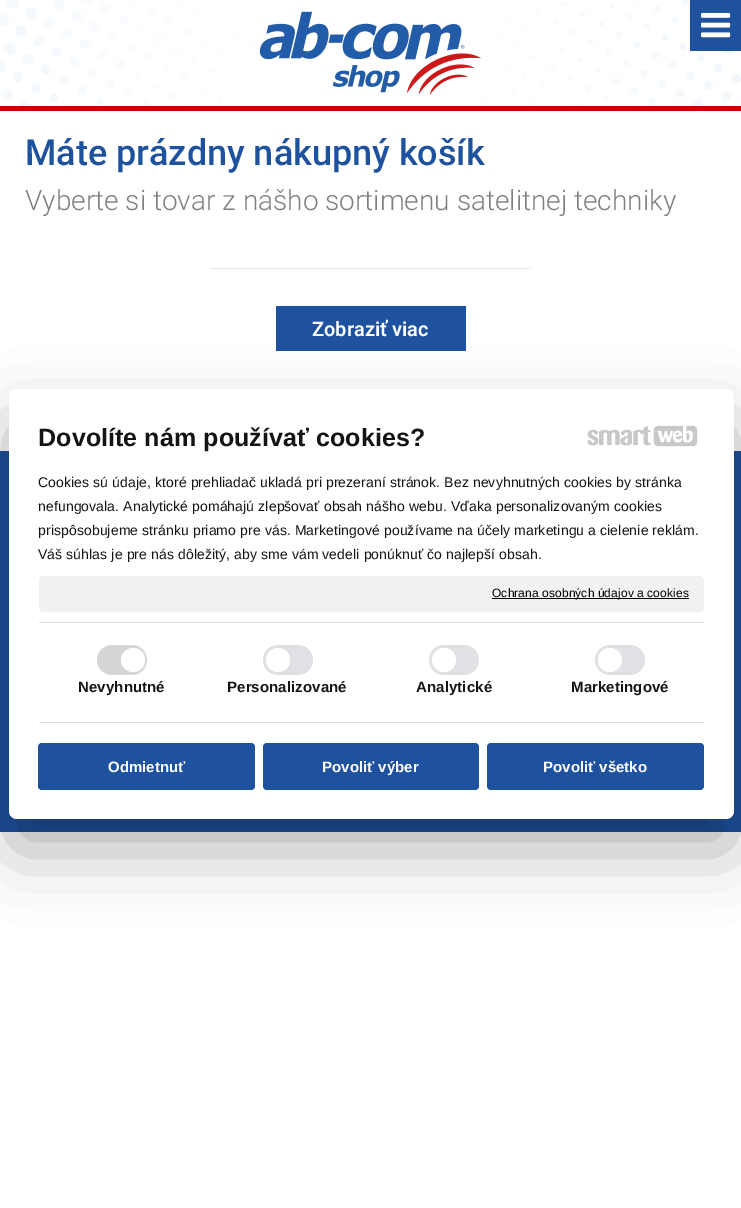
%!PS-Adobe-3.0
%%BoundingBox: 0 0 741 1208
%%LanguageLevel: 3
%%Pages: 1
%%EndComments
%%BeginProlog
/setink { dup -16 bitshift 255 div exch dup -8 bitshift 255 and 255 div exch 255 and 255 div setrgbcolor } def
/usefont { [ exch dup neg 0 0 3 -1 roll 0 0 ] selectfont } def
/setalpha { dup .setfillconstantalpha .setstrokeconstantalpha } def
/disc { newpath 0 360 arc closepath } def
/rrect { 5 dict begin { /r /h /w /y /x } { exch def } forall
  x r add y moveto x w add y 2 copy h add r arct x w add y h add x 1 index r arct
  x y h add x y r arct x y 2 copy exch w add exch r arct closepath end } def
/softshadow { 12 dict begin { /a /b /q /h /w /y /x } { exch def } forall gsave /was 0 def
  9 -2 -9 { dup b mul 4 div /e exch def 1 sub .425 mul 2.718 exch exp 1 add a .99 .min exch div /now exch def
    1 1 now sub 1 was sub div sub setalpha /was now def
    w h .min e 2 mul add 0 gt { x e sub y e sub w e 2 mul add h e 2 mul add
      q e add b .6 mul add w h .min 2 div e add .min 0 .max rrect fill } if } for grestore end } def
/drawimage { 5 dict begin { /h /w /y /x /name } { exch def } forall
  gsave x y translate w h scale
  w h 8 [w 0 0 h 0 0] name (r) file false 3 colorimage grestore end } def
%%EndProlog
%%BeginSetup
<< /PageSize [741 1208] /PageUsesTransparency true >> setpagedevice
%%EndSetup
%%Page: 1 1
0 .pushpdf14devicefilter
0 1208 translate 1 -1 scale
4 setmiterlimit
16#FFFFFF setink
0 0 741 1208 rectfill
(img2.raw) 0 0 741 106 drawimage
16#1E529E setink
690 0 51 51 rectfill
(img1.raw) 701 12 30 26 drawimage
16#CD0000 setink
0 106 741 5 rectfill
(img3.raw) 259 11 223 84 drawimage
/Roboto-Medium 36 usefont
16#1E529E setink
25 165 moveto (Máte prázdny nákupný košík) show
/Roboto-Light 28 usefont
16#808080 setink
25 210 moveto (Vyberte si tovar z nášho sortimenu satelitnej techniky) show
16#E6E6E6 setink
210 268 321 1 rectfill
16#1E529E setink
276 306 190 45 rectfill
/Roboto-SemiBold 20 usefont
16#FFFFFF setink
312 336 moveto (Zobraziť viac) show
16#1E529E setink
0 451 741 381 rectfill
16#000000 setink
9 421 725 430 8 34 0.3 softshadow
16#FFFFFF setink
9 389 725 430 8 rrect fill
/LiberationSans-Bold 25 usefont
16#141414 setink
38 446 moveto 0.1 0 (Dovolíte nám používať cookies?) ashow
(img4.raw) 587 426 64 20 drawimage
(img5.raw) 653 425 45 22 drawimage
/LiberationSans-Regular 14 usefont
38 487 moveto 0.1 0 (Cookies sú údaje, ktoré prehliadač ukladá pri prezeraní stránok. Bez nevyhnutných cookies by stránka) ashow
38 511 moveto 0.1 0 (nefungovala. Analytické pomáhajú zlepšovať obsah nášho webu. Vďaka personalizovaným cookies) ashow
38 535 moveto 0.1 0 (prispôsobujeme stránku priamo pre vás. Marketingové používame na účely marketingu a cielenie reklám.) ashow
38 559 moveto 0.1 0 (Váš súhlas je pre nás dôležitý, aby sme vám vedeli ponúknuť čo najlepší obsah.) ashow
16#F1F1F1 setink
39 576 665 36 5 rrect fill
16#000000 setink
492 598 197 1 rectfill
/LiberationSans-Regular 12 usefont
492 597 moveto 0.1 0 (Ochrana osobných údajov a cookies) ashow
16#DDDDDD setink
39 622 665 1 rectfill
39 722 665 1 rectfill
16#D6D6D6 setink
97 645 50 30 15 rrect fill
16#FFFFFF setink
133 660 12 disc fill
/LiberationSans-Bold 15 usefont
16#141414 setink
78 692 moveto 0.1 0 (Nevyhnutné) ashow
16#DFE1E4 setink
263 645 50 30 15 rrect fill
16#FFFFFF setink
278 660 12 disc fill
16#141414 setink
227 692 moveto 0.1 0 (Personalizované) ashow
16#DFE1E4 setink
429 645 50 30 15 rrect fill
16#FFFFFF setink
444 660 12 disc fill
16#141414 setink
416 692 moveto 0.1 0 (Analytické) ashow
16#DFE1E4 setink
595 645 50 30 15 rrect fill
16#FFFFFF setink
610 660 12 disc fill
16#141414 setink
571 692 moveto 0.1 0 (Marketingové) ashow
16#1E529E setink
38 743 217 47 4 rrect fill
16#FFFFFF setink
108 772 moveto (Odmietnuť) show
16#1E529E setink
263 743 216 47 4 rrect fill
16#FFFFFF setink
322 772 moveto (Povoliť výber) show
16#1E529E setink
487 743 217 47 4 rrect fill
16#FFFFFF setink
543 772 moveto (Povoliť všetko) show
.poppdf14devicefilter showpage
%%EOF
